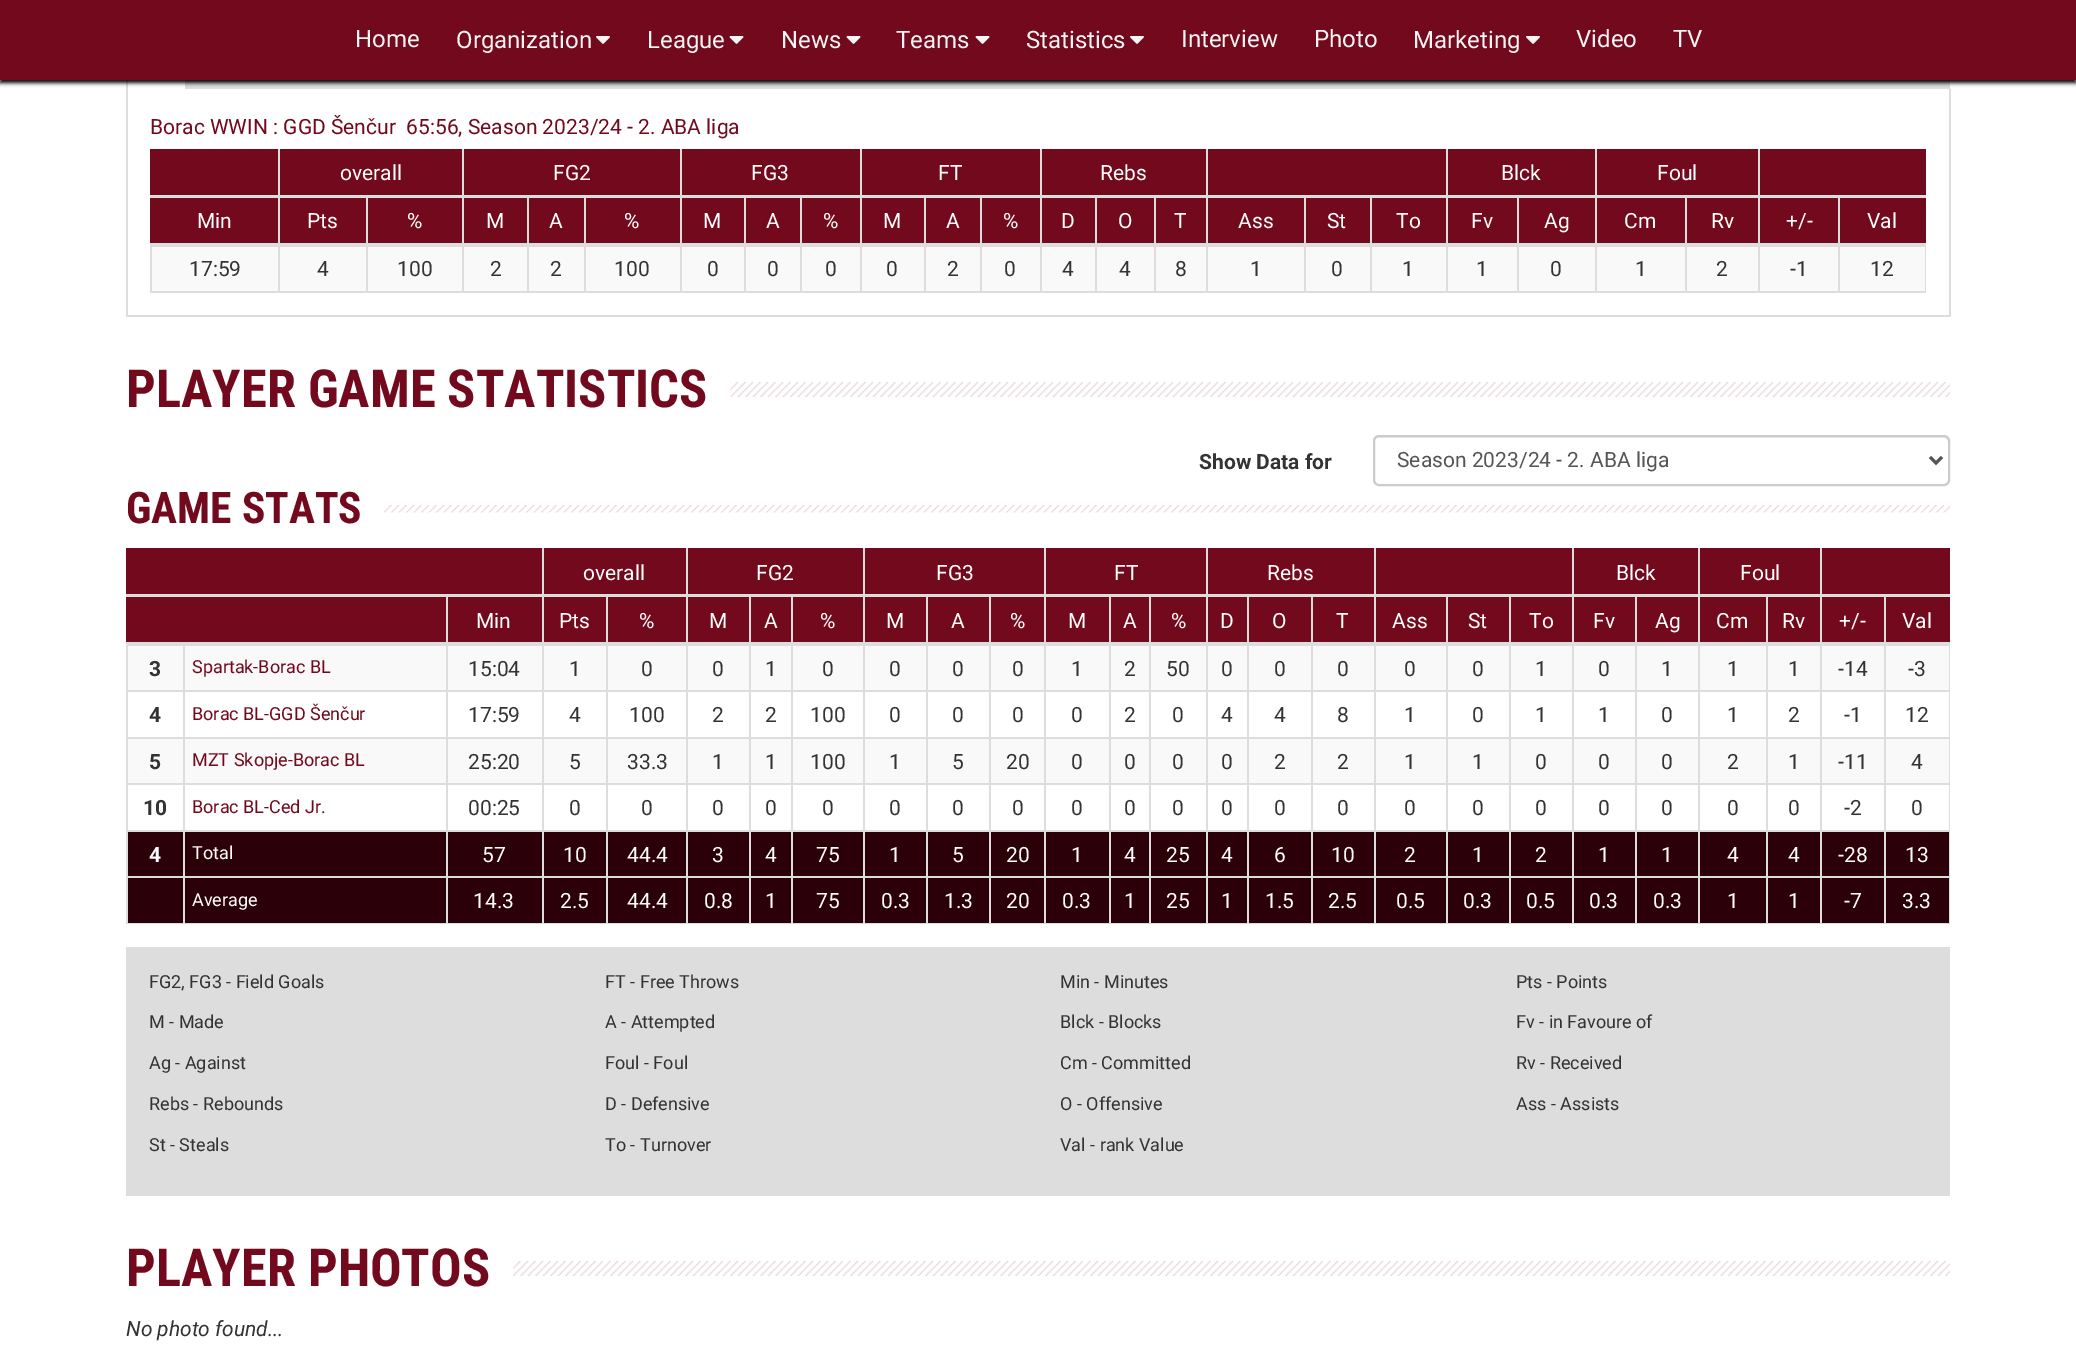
%!PS-Adobe-3.0
%%BoundingBox: 0 0 2076 1372
%%LanguageLevel: 3
%%Pages: 1
%%EndComments
%%BeginProlog
/setink { dup -16 bitshift 255 div exch dup -8 bitshift 255 and 255 div exch 255 and 255 div setrgbcolor } def
/usefont { [ exch dup neg 0 0 3 -1 roll 0 0 ] selectfont } def
/setalpha { dup .setfillconstantalpha .setstrokeconstantalpha } def
/rrect { 5 dict begin { /r /h /w /y /x } { exch def } forall
  x r add y moveto x w add y 2 copy h add r arct x w add y h add x 1 index r arct
  x y h add x y r arct x y 2 copy exch w add exch r arct closepath end } def
/softshadow { 12 dict begin { /a /b /q /h /w /y /x } { exch def } forall gsave /was 0 def
  9 -2 -9 { dup b mul 4 div /e exch def 1 sub .425 mul 2.718 exch exp 1 add a .99 .min exch div /now exch def
    1 1 now sub 1 was sub div sub setalpha /was now def
    w h .min e 2 mul add 0 gt { x e sub y e sub w e 2 mul add h e 2 mul add
      q e add b .6 mul add w h .min 2 div e add .min 0 .max rrect fill } if } for grestore end } def
/drawimage { 5 dict begin { /h /w /y /x /name } { exch def } forall
  gsave x y translate w h scale
  w h 8 [w 0 0 h 0 0] name (r) file false 3 colorimage grestore end } def
%%EndProlog
%%BeginSetup
<< /PageSize [2076 1372] /PageUsesTransparency true >> setpagedevice
%%EndSetup
%%Page: 1 1
0 .pushpdf14devicefilter
0 1372 translate 1 -1 scale
4 setmiterlimit
16#FFFFFF setink
0 0 2076 1372 rectfill
[
    [126 80 1824 9 16#DDDDDD]
    [128 80 57 9 16#FFFFFF]
    [1949 89 2 228 16#DDDDDD]
    [126 315 1824 2 16#DDDDDD]
    [126 89 2 228 16#DDDDDD]
] { aload pop setink rectfill } forall
16#000000 setink
0 3 2076 80 0 2 1 softshadow
16#73091D setink
0 0 2076 80 rectfill
/Roboto-Regular 24 usefont
16#F5F5F5 setink
355 47 moveto (Home) show
456 48 moveto (Organization) show
(img1.raw) 596 36 14 8 drawimage
647 48 moveto (League) show
(img2.raw) 729 36 15 8 drawimage
781 48 moveto (News) show
(img2.raw) 846 36 15 8 drawimage
896 48 moveto (Teams) show
(img2.raw) 975 36 15 8 drawimage
1026 48 moveto (Statistics) show
(img1.raw) 1130 36 14 8 drawimage
[
    [(Interview) 1181 47]
    [(Photo) 1314 47]
    [(Marketing) 1413 48]
] { aload pop moveto show } forall
(img1.raw) 1526 36 14 8 drawimage
1576 47 moveto (Video) show
1673 47 moveto (TV) show
/Roboto-Regular 21 usefont
16#73091D setink
150 134 moveto (Borac WWIN : GGD Šenčur  65:56, Season 2023/24 - 2. ABA liga) show
[
    [1925 247 1 46 16#DDDDDD]
    [150 291 1776 2 16#DDDDDD]
    [150 247 2 46 16#DDDDDD]
    [152 151 1773 92 16#73091D]
    [150 149 1776 2 16#73091D]
    [1925 197 1 49 16#73091D]
    [1925 149 1 49 16#73091D]
    [152 247 1773 44 16#F9F9F9]
    [1838 246 88 1 16#DDDDDD]
    [1838 197 2 96 16#DDDDDD]
    [1758 246 81 1 16#DDDDDD]
    [1758 197 2 96 16#DDDDDD]
    [1685 246 75 1 16#DDDDDD]
    [1685 197 2 96 16#DDDDDD]
    [1595 246 91 1 16#DDDDDD]
    [1595 197 2 96 16#DDDDDD]
    [1517 246 79 1 16#DDDDDD]
    [1517 197 2 96 16#DDDDDD]
    [1446 246 72 1 16#DDDDDD]
    [1446 197 2 96 16#DDDDDD]
    [1370 246 78 1 16#DDDDDD]
    [1370 197 2 96 16#DDDDDD]
    [1304 246 67 1 16#DDDDDD]
    [1304 197 2 96 16#DDDDDD]
    [1206 246 99 1 16#DDDDDD]
    [1206 197 2 96 16#DDDDDD]
    [1154 246 54 1 16#DDDDDD]
    [1154 197 2 96 16#DDDDDD]
    [1095 246 60 1 16#DDDDDD]
    [1095 197 2 96 16#DDDDDD]
    [1040 246 57 1 16#DDDDDD]
    [1040 197 2 96 16#DDDDDD]
    [980 246 61 1 16#DDDDDD]
    [980 197 2 96 16#DDDDDD]
    [924 246 57 1 16#DDDDDD]
    [924 197 2 96 16#DDDDDD]
    [860 246 66 1 16#DDDDDD]
    [860 197 2 96 16#DDDDDD]
    [800 246 61 1 16#DDDDDD]
    [800 197 2 96 16#DDDDDD]
    [744 246 57 1 16#DDDDDD]
    [744 197 2 96 16#DDDDDD]
    [680 246 66 1 16#DDDDDD]
    [680 197 2 96 16#DDDDDD]
    [584 246 97 1 16#DDDDDD]
    [584 197 2 96 16#DDDDDD]
    [527 246 58 1 16#DDDDDD]
    [527 197 2 96 16#DDDDDD]
    [462 246 66 1 16#DDDDDD]
    [462 197 2 96 16#DDDDDD]
    [366 246 98 1 16#DDDDDD]
    [366 197 2 96 16#DDDDDD]
    [278 246 90 1 16#DDDDDD]
    [278 197 2 96 16#DDDDDD]
    [278 149 2 49 16#DDDDDD]
    [150 197 2 49 16#73091D]
    [150 149 2 49 16#73091D]
    [462 149 2 49 16#DDDDDD]
    [680 149 2 49 16#DDDDDD]
    [860 149 2 49 16#DDDDDD]
    [1040 149 2 49 16#DDDDDD]
    [1206 149 2 49 16#DDDDDD]
    [1446 149 2 49 16#DDDDDD]
    [1595 149 2 49 16#DDDDDD]
    [1758 149 2 49 16#DDDDDD]
    [150 195 1776 3 16#DDDDDD]
] { aload pop setink rectfill } forall
16#FFFFFF setink
[
    [(overall) 340 180]
    [(FG2) 553 180]
    [(FG3) 751 180]
    [(FT) 938 180]
    [(Rebs) 1100 180]
    [(Blck) 1501 180]
    [(Foul) 1657 180]
    [(Min) 197 228]
    [(Pts) 307 228]
    [(%) 407 228]
    [(M) 486 228]
    [(A) 549 228]
    [(%) 624 228]
    [(M) 703 228]
    [(A) 766 228]
    [(%) 823 228]
    [(M) 883 228]
    [(A) 946 228]
    [(%) 1003 228]
    [(D) 1061 228]
    [(O) 1118 228]
    [(T) 1174 228]
    [(Ass) 1238 228]
    [(St) 1327 228]
    [(To) 1396 228]
    [(Fv) 1471 228]
    [(Ag) 1544 228]
    [(Cm) 1624 228]
    [(Rv) 1711 228]
    [(+/-) 1786 228]
] { aload pop moveto show } forall
16#DDDDDD setink
150 243 1776 3 rectfill
16#FFFFFF setink
1867 228 moveto (Val) show
16#DDDDDD setink
150 246 129 1 rectfill
16#333333 setink
[
    [(17:59) 189 276]
    [(4) 317 276]
    [(100) 397 276]
    [(2) 490 276]
    [(2) 550 276]
    [(100) 614 276]
    [(0) 707 276]
    [(0) 767 276]
    [(0) 825 276]
    [(0) 886 276]
    [(2) 947 276]
    [(0) 1004 276]
    [(4) 1062 276]
    [(4) 1119 276]
    [(8) 1175 276]
    [(1) 1250 276]
    [(0) 1331 276]
    [(1) 1402 276]
    [(1) 1476 276]
    [(0) 1550 276]
    [(1) 1635 276]
    [(2) 1716 276]
    [(-1) 1790 276]
    [(12) 1870 276]
] { aload pop moveto show } forall
/RobotoCondensed-Bold 52.5 usefont
16#73091D setink
126 407 moveto (PLAYER GAME STATISTICS) show
(img3.raw) 730 382 1220 15 drawimage
/Roboto-Bold 21 usefont
16#333333 setink
1199 469 moveto (Show Data for) show
16#ECECEC setink
1378 438 moveto 1944 438 lineto 1946 438 1948 440 1948 442 curveto 1948 483 lineto 1949 482 1949 481 1949 480 curveto 1949 442 lineto 1949 439 1947 437 1944 437 curveto 1379 437 lineto 1376 437 1374 439 1374 442 curveto 1374 440 1376 438 1378 438 curveto closepath fill
16#CCCCCC setink
2 setlinewidth
1374 436 575 49 5 rrect stroke
16#555555 setink
3 setlinewidth
1930 457 moveto 1936 463 lineto 1942 457 lineto stroke
/Roboto-Regular 21 usefont
1397 467 moveto (Season 2023/24 - 2. ABA liga) show
/RobotoCondensed-Bold 43.5 usefont
16#73091D setink
126 523 moveto (GAME STATS) show
(img4.raw) 384 505 1566 8 drawimage
[
    [1949 646 1 278 16#DDDDDD]
    [126 923 1824 1 16#DDDDDD]
    [126 646 2 278 16#DDDDDD]
    [128 550 1821 92 16#73091D]
    [126 548 1824 2 16#73091D]
    [1949 596 1 49 16#73091D]
    [1949 548 1 49 16#73091D]
    [128 646 1821 44 16#F9F9F9]
    [1884 645 66 1 16#DDDDDD]
    [1884 690 66 2 16#DDDDDD]
    [1884 737 66 2 16#DDDDDD]
    [128 739 1821 44 16#F9F9F9]
    [1884 783 66 2 16#DDDDDD]
    [1884 830 66 2 16#DDDDDD]
    [128 832 1821 44 16#2C0009]
    [1884 876 66 2 16#DDDDDD]
    [128 878 1821 45 16#2C0009]
    [1884 876 2 48 16#DDDDDD]
    [1820 876 66 2 16#DDDDDD]
    [1884 830 2 48 16#DDDDDD]
    [1820 830 66 2 16#DDDDDD]
    [1884 783 2 48 16#DDDDDD]
    [1820 783 66 2 16#DDDDDD]
    [1884 737 2 48 16#DDDDDD]
    [1820 737 66 2 16#DDDDDD]
    [1884 690 2 48 16#DDDDDD]
    [1820 690 66 2 16#DDDDDD]
    [1884 596 2 96 16#DDDDDD]
    [1820 645 66 1 16#DDDDDD]
    [1820 876 2 48 16#DDDDDD]
    [1766 876 55 2 16#DDDDDD]
    [1820 830 2 48 16#DDDDDD]
    [1766 830 55 2 16#DDDDDD]
    [1820 783 2 48 16#DDDDDD]
    [1766 783 55 2 16#DDDDDD]
    [1820 737 2 48 16#DDDDDD]
    [1766 737 55 2 16#DDDDDD]
    [1820 690 2 48 16#DDDDDD]
    [1766 690 55 2 16#DDDDDD]
    [1820 596 2 96 16#DDDDDD]
    [1766 645 55 1 16#DDDDDD]
    [1766 876 2 48 16#DDDDDD]
    [1698 876 69 2 16#DDDDDD]
    [1766 830 2 48 16#DDDDDD]
    [1698 830 69 2 16#DDDDDD]
    [1766 783 2 48 16#DDDDDD]
    [1698 783 69 2 16#DDDDDD]
    [1766 737 2 48 16#DDDDDD]
    [1698 737 69 2 16#DDDDDD]
    [1766 690 2 48 16#DDDDDD]
    [1698 690 69 2 16#DDDDDD]
    [1766 596 2 96 16#DDDDDD]
    [1698 645 69 1 16#DDDDDD]
    [1698 876 2 48 16#DDDDDD]
    [1635 876 65 2 16#DDDDDD]
    [1698 830 2 48 16#DDDDDD]
    [1635 830 65 2 16#DDDDDD]
    [1698 783 2 48 16#DDDDDD]
    [1635 783 65 2 16#DDDDDD]
    [1698 737 2 48 16#DDDDDD]
    [1635 737 65 2 16#DDDDDD]
    [1698 690 2 48 16#DDDDDD]
    [1635 690 65 2 16#DDDDDD]
    [1698 596 2 96 16#DDDDDD]
    [1635 645 65 1 16#DDDDDD]
    [1635 876 2 48 16#DDDDDD]
    [1572 876 65 2 16#DDDDDD]
    [1635 830 2 48 16#DDDDDD]
    [1572 830 65 2 16#DDDDDD]
    [1635 783 2 48 16#DDDDDD]
    [1572 783 65 2 16#DDDDDD]
    [1635 737 2 48 16#DDDDDD]
    [1572 737 65 2 16#DDDDDD]
    [1635 690 2 48 16#DDDDDD]
    [1572 690 65 2 16#DDDDDD]
    [1635 596 2 96 16#DDDDDD]
    [1572 645 65 1 16#DDDDDD]
    [1572 876 2 48 16#DDDDDD]
    [1509 876 65 2 16#DDDDDD]
    [1572 830 2 48 16#DDDDDD]
    [1509 830 65 2 16#DDDDDD]
    [1572 783 2 48 16#DDDDDD]
    [1509 783 65 2 16#DDDDDD]
    [1572 737 2 48 16#DDDDDD]
    [1509 737 65 2 16#DDDDDD]
    [1572 690 2 48 16#DDDDDD]
    [1509 690 65 2 16#DDDDDD]
    [1572 596 2 96 16#DDDDDD]
    [1509 645 65 1 16#DDDDDD]
    [1509 876 2 48 16#DDDDDD]
    [1446 876 65 2 16#DDDDDD]
    [1509 830 2 48 16#DDDDDD]
    [1446 830 65 2 16#DDDDDD]
    [1509 783 2 48 16#DDDDDD]
    [1446 783 65 2 16#DDDDDD]
    [1509 737 2 48 16#DDDDDD]
    [1446 737 65 2 16#DDDDDD]
    [1509 690 2 48 16#DDDDDD]
    [1446 690 65 2 16#DDDDDD]
    [1509 596 2 96 16#DDDDDD]
    [1446 645 65 1 16#DDDDDD]
    [1446 876 2 48 16#DDDDDD]
    [1374 876 74 2 16#DDDDDD]
    [1446 830 2 48 16#DDDDDD]
    [1374 830 74 2 16#DDDDDD]
    [1446 783 2 48 16#DDDDDD]
    [1374 783 74 2 16#DDDDDD]
    [1446 737 2 48 16#DDDDDD]
    [1374 737 74 2 16#DDDDDD]
    [1446 690 2 48 16#DDDDDD]
    [1374 690 74 2 16#DDDDDD]
    [1446 596 2 96 16#DDDDDD]
    [1374 645 74 1 16#DDDDDD]
    [1374 876 2 48 16#DDDDDD]
    [1311 876 65 2 16#DDDDDD]
    [1374 830 2 48 16#DDDDDD]
    [1311 830 65 2 16#DDDDDD]
    [1374 783 2 48 16#DDDDDD]
    [1311 783 65 2 16#DDDDDD]
    [1374 737 2 48 16#DDDDDD]
    [1311 737 65 2 16#DDDDDD]
    [1374 690 2 48 16#DDDDDD]
    [1311 690 65 2 16#DDDDDD]
    [1374 596 2 96 16#DDDDDD]
    [1311 645 65 1 16#DDDDDD]
    [1311 876 2 48 16#DDDDDD]
    [1247 876 66 2 16#DDDDDD]
    [1311 830 2 48 16#DDDDDD]
    [1247 830 66 2 16#DDDDDD]
    [1311 783 2 48 16#DDDDDD]
    [1247 783 66 2 16#DDDDDD]
    [1311 737 2 48 16#DDDDDD]
    [1247 737 66 2 16#DDDDDD]
    [1311 690 2 48 16#DDDDDD]
    [1247 690 66 2 16#DDDDDD]
    [1311 596 2 96 16#DDDDDD]
    [1247 645 66 1 16#DDDDDD]
    [1247 876 2 48 16#DDDDDD]
    [1206 876 42 2 16#DDDDDD]
    [1247 830 2 48 16#DDDDDD]
    [1206 830 42 2 16#DDDDDD]
    [1247 783 2 48 16#DDDDDD]
    [1206 783 42 2 16#DDDDDD]
    [1247 737 2 48 16#DDDDDD]
    [1206 737 42 2 16#DDDDDD]
    [1247 690 2 48 16#DDDDDD]
    [1206 690 42 2 16#DDDDDD]
    [1247 596 2 96 16#DDDDDD]
    [1206 645 42 1 16#DDDDDD]
    [1206 876 2 48 16#DDDDDD]
    [1149 876 59 2 16#DDDDDD]
    [1206 830 2 48 16#DDDDDD]
    [1149 830 59 2 16#DDDDDD]
    [1206 783 2 48 16#DDDDDD]
    [1149 783 59 2 16#DDDDDD]
    [1206 737 2 48 16#DDDDDD]
    [1149 737 59 2 16#DDDDDD]
    [1206 690 2 48 16#DDDDDD]
    [1149 690 59 2 16#DDDDDD]
    [1206 596 2 96 16#DDDDDD]
    [1149 645 59 1 16#DDDDDD]
    [1149 876 2 48 16#DDDDDD]
    [1109 876 42 2 16#DDDDDD]
    [1149 830 2 48 16#DDDDDD]
    [1109 830 42 2 16#DDDDDD]
    [1149 783 2 48 16#DDDDDD]
    [1109 783 42 2 16#DDDDDD]
    [1149 737 2 48 16#DDDDDD]
    [1109 737 42 2 16#DDDDDD]
    [1149 690 2 48 16#DDDDDD]
    [1109 690 42 2 16#DDDDDD]
    [1149 596 2 96 16#DDDDDD]
    [1109 645 42 1 16#DDDDDD]
    [1109 876 2 48 16#DDDDDD]
    [1044 876 66 2 16#DDDDDD]
    [1109 830 2 48 16#DDDDDD]
    [1044 830 66 2 16#DDDDDD]
    [1109 783 2 48 16#DDDDDD]
    [1044 783 66 2 16#DDDDDD]
    [1109 737 2 48 16#DDDDDD]
    [1044 737 66 2 16#DDDDDD]
    [1109 690 2 48 16#DDDDDD]
    [1044 690 66 2 16#DDDDDD]
    [1109 596 2 96 16#DDDDDD]
    [1044 645 66 1 16#DDDDDD]
    [1044 876 2 48 16#DDDDDD]
    [989 876 57 2 16#DDDDDD]
    [1044 830 2 48 16#DDDDDD]
    [989 830 57 2 16#DDDDDD]
    [1044 783 2 48 16#DDDDDD]
    [989 783 57 2 16#DDDDDD]
    [1044 737 2 48 16#DDDDDD]
    [989 737 57 2 16#DDDDDD]
    [1044 690 2 48 16#DDDDDD]
    [989 690 57 2 16#DDDDDD]
    [1044 596 2 96 16#DDDDDD]
    [989 645 57 1 16#DDDDDD]
    [989 876 2 48 16#DDDDDD]
    [926 876 64 2 16#DDDDDD]
    [989 830 2 48 16#DDDDDD]
    [926 830 64 2 16#DDDDDD]
    [989 783 2 48 16#DDDDDD]
    [926 783 64 2 16#DDDDDD]
    [989 737 2 48 16#DDDDDD]
    [926 737 64 2 16#DDDDDD]
    [989 690 2 48 16#DDDDDD]
    [926 690 64 2 16#DDDDDD]
    [989 596 2 96 16#DDDDDD]
    [926 645 64 1 16#DDDDDD]
    [926 876 2 48 16#DDDDDD]
    [863 876 64 2 16#DDDDDD]
    [926 830 2 48 16#DDDDDD]
    [863 830 64 2 16#DDDDDD]
    [926 783 2 48 16#DDDDDD]
    [863 783 64 2 16#DDDDDD]
    [926 737 2 48 16#DDDDDD]
    [863 737 64 2 16#DDDDDD]
    [926 690 2 48 16#DDDDDD]
    [863 690 64 2 16#DDDDDD]
    [926 596 2 96 16#DDDDDD]
    [863 645 64 1 16#DDDDDD]
    [863 876 2 48 16#DDDDDD]
    [791 876 73 2 16#DDDDDD]
    [863 830 2 48 16#DDDDDD]
    [791 830 73 2 16#DDDDDD]
    [863 783 2 48 16#DDDDDD]
    [791 783 73 2 16#DDDDDD]
    [863 737 2 48 16#DDDDDD]
    [791 737 73 2 16#DDDDDD]
    [863 690 2 48 16#DDDDDD]
    [791 690 73 2 16#DDDDDD]
    [863 596 2 96 16#DDDDDD]
    [791 645 73 1 16#DDDDDD]
    [791 876 2 48 16#DDDDDD]
    [749 876 43 2 16#DDDDDD]
    [791 830 2 48 16#DDDDDD]
    [749 830 43 2 16#DDDDDD]
    [791 783 2 48 16#DDDDDD]
    [749 783 43 2 16#DDDDDD]
    [791 737 2 48 16#DDDDDD]
    [749 737 43 2 16#DDDDDD]
    [791 690 2 48 16#DDDDDD]
    [749 690 43 2 16#DDDDDD]
    [791 596 2 96 16#DDDDDD]
    [749 645 43 1 16#DDDDDD]
    [749 876 2 48 16#DDDDDD]
    [686 876 64 2 16#DDDDDD]
    [749 830 2 48 16#DDDDDD]
    [686 830 64 2 16#DDDDDD]
    [749 783 2 48 16#DDDDDD]
    [686 783 64 2 16#DDDDDD]
    [749 737 2 48 16#DDDDDD]
    [686 737 64 2 16#DDDDDD]
    [749 690 2 48 16#DDDDDD]
    [686 690 64 2 16#DDDDDD]
    [749 596 2 96 16#DDDDDD]
    [686 645 64 1 16#DDDDDD]
    [686 876 2 48 16#DDDDDD]
    [606 876 81 2 16#DDDDDD]
    [686 830 2 48 16#DDDDDD]
    [606 830 81 2 16#DDDDDD]
    [686 783 2 48 16#DDDDDD]
    [606 783 81 2 16#DDDDDD]
    [686 737 2 48 16#DDDDDD]
    [606 737 81 2 16#DDDDDD]
    [686 690 2 48 16#DDDDDD]
    [606 690 81 2 16#DDDDDD]
    [686 596 2 96 16#DDDDDD]
    [606 645 81 1 16#DDDDDD]
    [606 876 2 48 16#DDDDDD]
    [542 876 66 2 16#DDDDDD]
    [606 830 2 48 16#DDDDDD]
    [542 830 66 2 16#DDDDDD]
    [606 783 2 48 16#DDDDDD]
    [542 783 66 2 16#DDDDDD]
    [606 737 2 48 16#DDDDDD]
    [542 737 66 2 16#DDDDDD]
    [606 690 2 48 16#DDDDDD]
    [542 690 66 2 16#DDDDDD]
    [606 596 2 96 16#DDDDDD]
    [542 645 66 1 16#DDDDDD]
    [542 876 2 48 16#DDDDDD]
    [446 876 97 2 16#DDDDDD]
    [542 830 2 48 16#DDDDDD]
    [446 830 97 2 16#DDDDDD]
    [542 783 2 48 16#DDDDDD]
    [446 783 97 2 16#DDDDDD]
    [542 737 2 48 16#DDDDDD]
    [446 737 97 2 16#DDDDDD]
    [542 690 2 48 16#DDDDDD]
    [446 690 97 2 16#DDDDDD]
    [542 596 2 96 16#DDDDDD]
    [542 548 2 49 16#DDDDDD]
    [126 596 2 49 16#73091D]
    [126 548 2 49 16#73091D]
    [686 548 2 49 16#DDDDDD]
    [863 548 2 49 16#DDDDDD]
    [1044 548 2 49 16#DDDDDD]
    [1206 548 2 49 16#DDDDDD]
    [1374 548 2 49 16#DDDDDD]
    [1572 548 2 49 16#DDDDDD]
    [1698 548 2 49 16#DDDDDD]
    [1820 548 2 49 16#DDDDDD]
    [446 645 97 1 16#DDDDDD]
    [446 876 2 48 16#DDDDDD]
    [183 876 264 2 16#DDDDDD]
    [446 830 2 48 16#DDDDDD]
    [183 830 264 2 16#DDDDDD]
    [446 783 2 48 16#DDDDDD]
    [183 783 264 2 16#DDDDDD]
    [446 737 2 48 16#DDDDDD]
    [183 737 264 2 16#DDDDDD]
    [446 690 2 48 16#DDDDDD]
    [183 690 264 2 16#DDDDDD]
    [446 596 2 96 16#DDDDDD]
    [126 594 1824 3 16#DDDDDD]
] { aload pop setink rectfill } forall
/Roboto-Regular 21 usefont
16#FFFFFF setink
[
    [(overall) 583 580]
    [(FG2) 756 580]
    [(FG3) 936 580]
    [(FT) 1114 580]
    [(Rebs) 1267 580]
    [(Blck) 1616 580]
    [(Foul) 1740 580]
    [(Min) 476 628]
    [(Pts) 559 628]
    [(%) 639 628]
    [(M) 709 628]
    [(A) 764 628]
    [(%) 820 628]
    [(M) 886 628]
    [(A) 951 628]
    [(%) 1010 628]
    [(M) 1068 628]
    [(A) 1123 628]
    [(%) 1171 628]
    [(D) 1220 628]
    [(O) 1272 628]
    [(T) 1336 628]
    [(Ass) 1392 628]
    [(St) 1468 628]
    [(To) 1529 628]
    [(Fv) 1593 628]
    [(Ag) 1655 628]
    [(Cm) 1716 628]
    [(Rv) 1782 628]
    [(+/-) 1839 628]
] { aload pop moveto show } forall
[
    [183 645 264 1 16#DDDDDD]
    [183 876 2 48 16#DDDDDD]
    [126 876 59 2 16#DDDDDD]
    [183 830 2 48 16#DDDDDD]
    [126 830 59 2 16#DDDDDD]
    [183 783 2 48 16#DDDDDD]
    [126 783 59 2 16#DDDDDD]
    [183 737 2 48 16#DDDDDD]
    [126 737 59 2 16#DDDDDD]
    [183 690 2 48 16#DDDDDD]
    [126 690 59 2 16#DDDDDD]
    [183 644 2 48 16#DDDDDD]
    [126 642 1824 3 16#DDDDDD]
] { aload pop setink rectfill } forall
16#FFFFFF setink
1902 628 moveto (Val) show
16#DDDDDD setink
126 645 59 1 rectfill
/Roboto-Bold 21 usefont
16#333333 setink
149 676 moveto (3) show
/Roboto-Regular 18 usefont
16#73091D setink
192 673 moveto (Spartak-Borac BL) show
/Roboto-Regular 21 usefont
16#333333 setink
[
    [(15:04) 468 676]
    [(1) 569 676]
    [(0) 641 676]
    [(0) 712 676]
    [(1) 765 676]
    [(0) 822 676]
    [(0) 889 676]
    [(0) 952 676]
    [(0) 1012 676]
    [(1) 1071 676]
    [(2) 1124 676]
    [(50) 1166 676]
    [(0) 1221 676]
    [(0) 1274 676]
    [(0) 1337 676]
    [(0) 1404 676]
    [(0) 1472 676]
    [(1) 1535 676]
    [(0) 1598 676]
    [(1) 1661 676]
    [(1) 1727 676]
    [(1) 1788 676]
    [(-14) 1838 676]
    [(-3) 1908 676]
] { aload pop moveto show } forall
/Roboto-Bold 21 usefont
149 722 moveto (4) show
/Roboto-Regular 18 usefont
16#73091D setink
192 720 moveto (Borac BL-GGD Šenčur) show
/Roboto-Regular 21 usefont
16#333333 setink
[
    [(17:59) 468 722]
    [(4) 569 722]
    [(100) 629 722]
    [(2) 712 722]
    [(2) 765 722]
    [(100) 810 722]
    [(0) 889 722]
    [(0) 952 722]
    [(0) 1012 722]
    [(0) 1071 722]
    [(2) 1124 722]
    [(0) 1172 722]
    [(4) 1221 722]
    [(4) 1274 722]
    [(8) 1337 722]
    [(1) 1404 722]
    [(0) 1472 722]
    [(1) 1535 722]
    [(1) 1598 722]
    [(0) 1661 722]
    [(1) 1727 722]
    [(2) 1788 722]
    [(-1) 1844 722]
    [(12) 1905 722]
] { aload pop moveto show } forall
/Roboto-Bold 21 usefont
149 769 moveto (5) show
/Roboto-Regular 18 usefont
16#73091D setink
192 766 moveto (MZT Skopje-Borac BL) show
/Roboto-Regular 21 usefont
16#333333 setink
[
    [(25:20) 468 769]
    [(5) 569 769]
    [(33.3) 627 769]
    [(1) 712 769]
    [(1) 765 769]
    [(100) 810 769]
    [(1) 889 769]
    [(5) 952 769]
    [(20) 1006 769]
    [(0) 1071 769]
    [(0) 1124 769]
    [(0) 1172 769]
    [(0) 1221 769]
    [(2) 1274 769]
    [(2) 1337 769]
    [(1) 1404 769]
    [(1) 1472 769]
    [(0) 1535 769]
    [(0) 1598 769]
    [(0) 1661 769]
    [(2) 1727 769]
    [(1) 1788 769]
    [(-11) 1838 769]
    [(4) 1911 769]
] { aload pop moveto show } forall
/Roboto-Bold 21 usefont
143 815 moveto (10) show
/Roboto-Regular 18 usefont
16#73091D setink
192 813 moveto (Borac BL-Ced Jr.) show
/Roboto-Regular 21 usefont
16#333333 setink
[
    [(00:25) 468 815]
    [(0) 569 815]
    [(0) 641 815]
    [(0) 712 815]
    [(0) 765 815]
    [(0) 822 815]
    [(0) 889 815]
    [(0) 952 815]
    [(0) 1012 815]
    [(0) 1071 815]
    [(0) 1124 815]
    [(0) 1172 815]
    [(0) 1221 815]
    [(0) 1274 815]
    [(0) 1337 815]
    [(0) 1404 815]
    [(0) 1472 815]
    [(0) 1535 815]
    [(0) 1598 815]
    [(0) 1661 815]
    [(0) 1727 815]
    [(0) 1788 815]
    [(-2) 1844 815]
    [(0) 1911 815]
] { aload pop moveto show } forall
/Roboto-Bold 21 usefont
16#FFFFFF setink
149 862 moveto (4) show
/Roboto-Regular 18 usefont
192 859 moveto (Total) show
/Roboto-Regular 21 usefont
[
    [(57) 482 862]
    [(10) 563 862]
    [(44.4) 627 862]
    [(3) 712 862]
    [(4) 765 862]
    [(75) 816 862]
    [(1) 889 862]
    [(5) 952 862]
    [(20) 1006 862]
    [(1) 1071 862]
    [(4) 1124 862]
    [(25) 1166 862]
    [(4) 1221 862]
    [(6) 1274 862]
    [(10) 1331 862]
    [(2) 1404 862]
    [(1) 1472 862]
    [(2) 1535 862]
    [(1) 1598 862]
    [(1) 1661 862]
    [(4) 1727 862]
    [(4) 1788 862]
    [(-28) 1838 862]
    [(13) 1905 862]
] { aload pop moveto show } forall
/Roboto-Regular 18 usefont
192 906 moveto (Average) show
/Roboto-Regular 21 usefont
[
    [(14.3) 473 908]
    [(2.5) 560 908]
    [(44.4) 627 908]
    [(0.8) 704 908]
    [(1) 765 908]
    [(75) 816 908]
    [(0.3) 881 908]
    [(1.3) 944 908]
    [(20) 1006 908]
    [(0.3) 1062 908]
    [(1) 1124 908]
    [(25) 1166 908]
    [(1) 1221 908]
    [(1.5) 1265 908]
    [(2.5) 1328 908]
    [(0.5) 1396 908]
    [(0.3) 1463 908]
    [(0.5) 1526 908]
    [(0.3) 1589 908]
    [(0.3) 1653 908]
    [(1) 1727 908]
    [(1) 1788 908]
    [(-7) 1844 908]
    [(3.3) 1902 908]
] { aload pop moveto show } forall
16#DDDDDD setink
126 947 1824 249 rectfill
/Roboto-Regular 18 usefont
16#333333 setink
[
    [(FG2, FG3 - Field Goals) 149 988]
    [(M - Made) 149 1028]
    [(Ag - Against) 149 1069]
    [(Rebs - Rebounds) 149 1110]
    [(St - Steals) 149 1151]
    [(FT - Free Throws) 605 988]
    [(A - Attempted) 605 1028]
    [(Foul - Foul) 605 1069]
    [(D - Defensive) 605 1110]
    [(To - Turnover) 605 1151]
    [(Min - Minutes) 1060 988]
    [(Blck - Blocks) 1060 1028]
    [(Cm - Committed) 1060 1069]
    [(O - Offensive) 1060 1110]
    [(Val - rank Value) 1060 1151]
    [(Pts - Points) 1516 988]
    [(Fv - in Favoure of) 1516 1028]
    [(Rv - Received) 1516 1069]
    [(Ass - Assists) 1516 1110]
] { aload pop moveto show } forall
/RobotoCondensed-Bold 52.5 usefont
16#73091D setink
126 1286 moveto (PLAYER PHOTOS) show
(img5.raw) 513 1261 1437 15 drawimage
/Roboto-Italic 21 usefont
16#333333 setink
126 1336 moveto (No photo found...) show
.poppdf14devicefilter showpage
%%EOF
